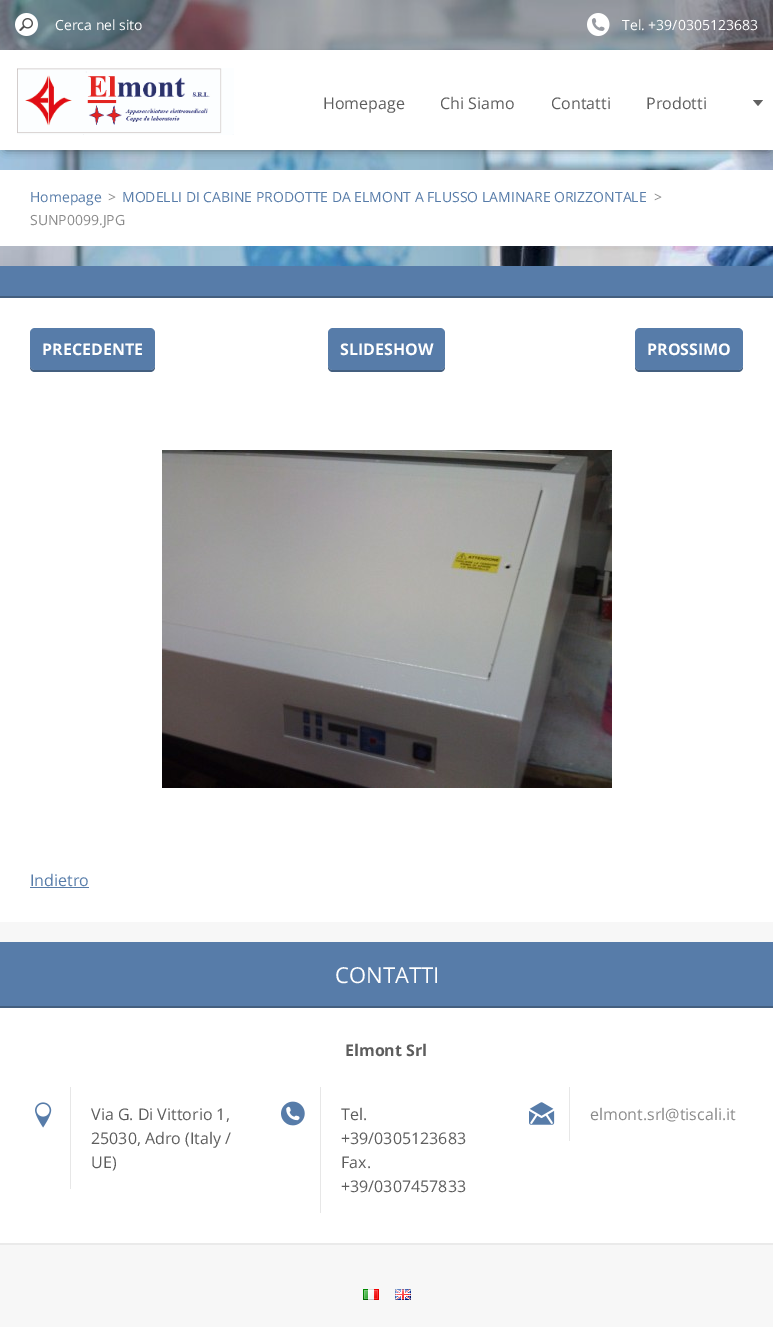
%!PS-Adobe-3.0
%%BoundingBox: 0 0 773 1327
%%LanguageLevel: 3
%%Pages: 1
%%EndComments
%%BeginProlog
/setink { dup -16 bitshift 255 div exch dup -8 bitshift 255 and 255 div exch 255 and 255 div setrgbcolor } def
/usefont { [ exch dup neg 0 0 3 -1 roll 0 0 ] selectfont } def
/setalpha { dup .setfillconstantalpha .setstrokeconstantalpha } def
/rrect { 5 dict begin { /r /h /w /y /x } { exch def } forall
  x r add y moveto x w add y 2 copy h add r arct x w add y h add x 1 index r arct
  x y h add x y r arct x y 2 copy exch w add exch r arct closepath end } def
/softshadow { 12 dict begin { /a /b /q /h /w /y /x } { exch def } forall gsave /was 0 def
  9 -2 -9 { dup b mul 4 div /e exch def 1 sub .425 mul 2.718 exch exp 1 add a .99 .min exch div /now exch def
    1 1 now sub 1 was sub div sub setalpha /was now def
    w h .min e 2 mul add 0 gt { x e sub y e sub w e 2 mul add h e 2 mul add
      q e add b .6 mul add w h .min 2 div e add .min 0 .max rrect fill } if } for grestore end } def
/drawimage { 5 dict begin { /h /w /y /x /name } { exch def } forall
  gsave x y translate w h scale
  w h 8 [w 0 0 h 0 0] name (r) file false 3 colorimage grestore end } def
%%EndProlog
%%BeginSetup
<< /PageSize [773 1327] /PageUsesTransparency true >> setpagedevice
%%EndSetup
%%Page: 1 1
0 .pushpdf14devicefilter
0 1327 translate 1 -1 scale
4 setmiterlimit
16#F7F7F7 setink
0 0 773 1327 rectfill
(img1.raw) 0 0 773 266 drawimage
0.4 setalpha
16#353535 setink
0 0 773 50 rectfill
1 setalpha
(img2.raw) 15 13 23 23 drawimage
/OpenSans-Regular 14 usefont
16#FFFFFF setink
55 30 moveto (Cerca nel sito) show
(img3.raw) 587 13 23 23 drawimage
622 30 moveto (Tel. +39/0305123683) show
16#353535 setink
6 60 761 88 0 5 1 softshadow
16#FFFFFF setink
0 50 773 100 rectfill
(img4.raw) 17 68 217 67 drawimage
/OpenSans-Regular 16 usefont
16#5D5D5D setink
[
    [(Homepage) 323 109]
    [(Chi Siamo) 440 109]
    [(Contatti) 551 109]
    [(Prodotti) 646 109]
] { aload pop moveto show } forall
16#616161 setink
753 100 moveto 763 100 lineto 758 106 lineto closepath fill
16#FFFFFF setink
0 170 773 76 rectfill
/OpenSans-Regular 14 usefont
16#577CA9 setink
30 202 moveto (Homepage) show
16#8A8A8A setink
108 202 moveto (>) show
16#577CA9 setink
122 202 moveto (MODELLI DI CABINE PRODOTTE DA ELMONT A FLUSSO LAMINARE ORIZZONTALE) show
16#8A8A8A setink
654 202 moveto (>) show
30 225 moveto (SUNP0099.JPG) show
[
    [0 298 773 624 16#FFFFFF]
    [0 266 773 30 16#577CA9]
    [0 296 773 2 16#445F7F]
] { aload pop setink rectfill } forall
30 365 moveto 30 367 lineto 30 370 32 372 35 372 curveto 150 372 lineto 153 372 155 370 155 367 curveto 155 365 lineto 155 368 153 370 150 370 curveto 35 370 lineto 32 370 30 368 30 365 curveto closepath fill
16#577CA9 setink
30 328 125 42 5 rrect fill
/OpenSans-Bold 16 usefont
16#FFFFFF setink
42 355 moveto (PRECEDENTE) show
16#445F7F setink
328 365 moveto 328 367 lineto 328 370 330 372 333 372 curveto 440 372 lineto 443 372 445 370 445 367 curveto 445 365 lineto 445 368 443 370 440 370 curveto 333 370 lineto 330 370 328 368 328 365 curveto closepath fill
16#577CA9 setink
328 328 117 42 5 rrect fill
16#FFFFFF setink
340 355 moveto (SLIDESHOW) show
16#445F7F setink
635 365 moveto 635 367 lineto 635 370 637 372 640 372 curveto 738 372 lineto 741 372 743 370 743 367 curveto 743 365 lineto 743 368 741 370 738 370 curveto 640 370 lineto 637 370 635 368 635 365 curveto closepath fill
16#577CA9 setink
635 328 108 42 5 rrect fill
16#FFFFFF setink
647 355 moveto (PROSSIMO) show
(img5.raw) 162 450 450 338 drawimage
/OpenSans-Regular 16 usefont
16#577CA9 setink
30 886 moveto (Indietro) show
[
    [30 887 59 1 16#577CA9]
    [0 1243 773 2 16#EAEAEA]
    [0 1008 773 235 16#FFFFFF]
    [0 942 773 64 16#577CA9]
    [0 1006 773 2 16#445F7F]
] { aload pop setink rectfill } forall
/OpenSans-Regular 22 usefont
16#FFFFFF setink
335 983 moveto (CONTATTI) show
/OpenSans-Bold 16 usefont
16#5D5D5D setink
345 1056 moveto (Elmont Srl) show
(img6.raw) 35 1102 17 26 drawimage
16#E7E7E7 setink
70 1087 1 102 rectfill
/OpenSans-Regular 16 usefont
16#5D5D5D setink
[
    [(Via G. Di Vittorio 1,) 91 1120]
    [(25030, Adro \(Italy /) 91 1144]
    [(UE\)) 91 1168]
] { aload pop moveto show } forall
(img7.raw) 281 1101 24 25 drawimage
16#E7E7E7 setink
320 1087 1 126 rectfill
16#5D5D5D setink
[
    [(Tel.) 341 1120]
    [(+39/0305123683) 341 1144]
    [(Fax.) 341 1168]
    [(+39/0307457833) 341 1192]
] { aload pop moveto show } forall
(img8.raw) 529 1102 26 23 drawimage
16#E7E7E7 setink
569 1087 1 54 rectfill
16#8A8A8A setink
590 1120 moveto (elmont.srl@tiscali.it) show
(img9.raw) 363 1289 16 11 drawimage
(img10.raw) 395 1289 16 11 drawimage
.poppdf14devicefilter showpage
%%EOF
